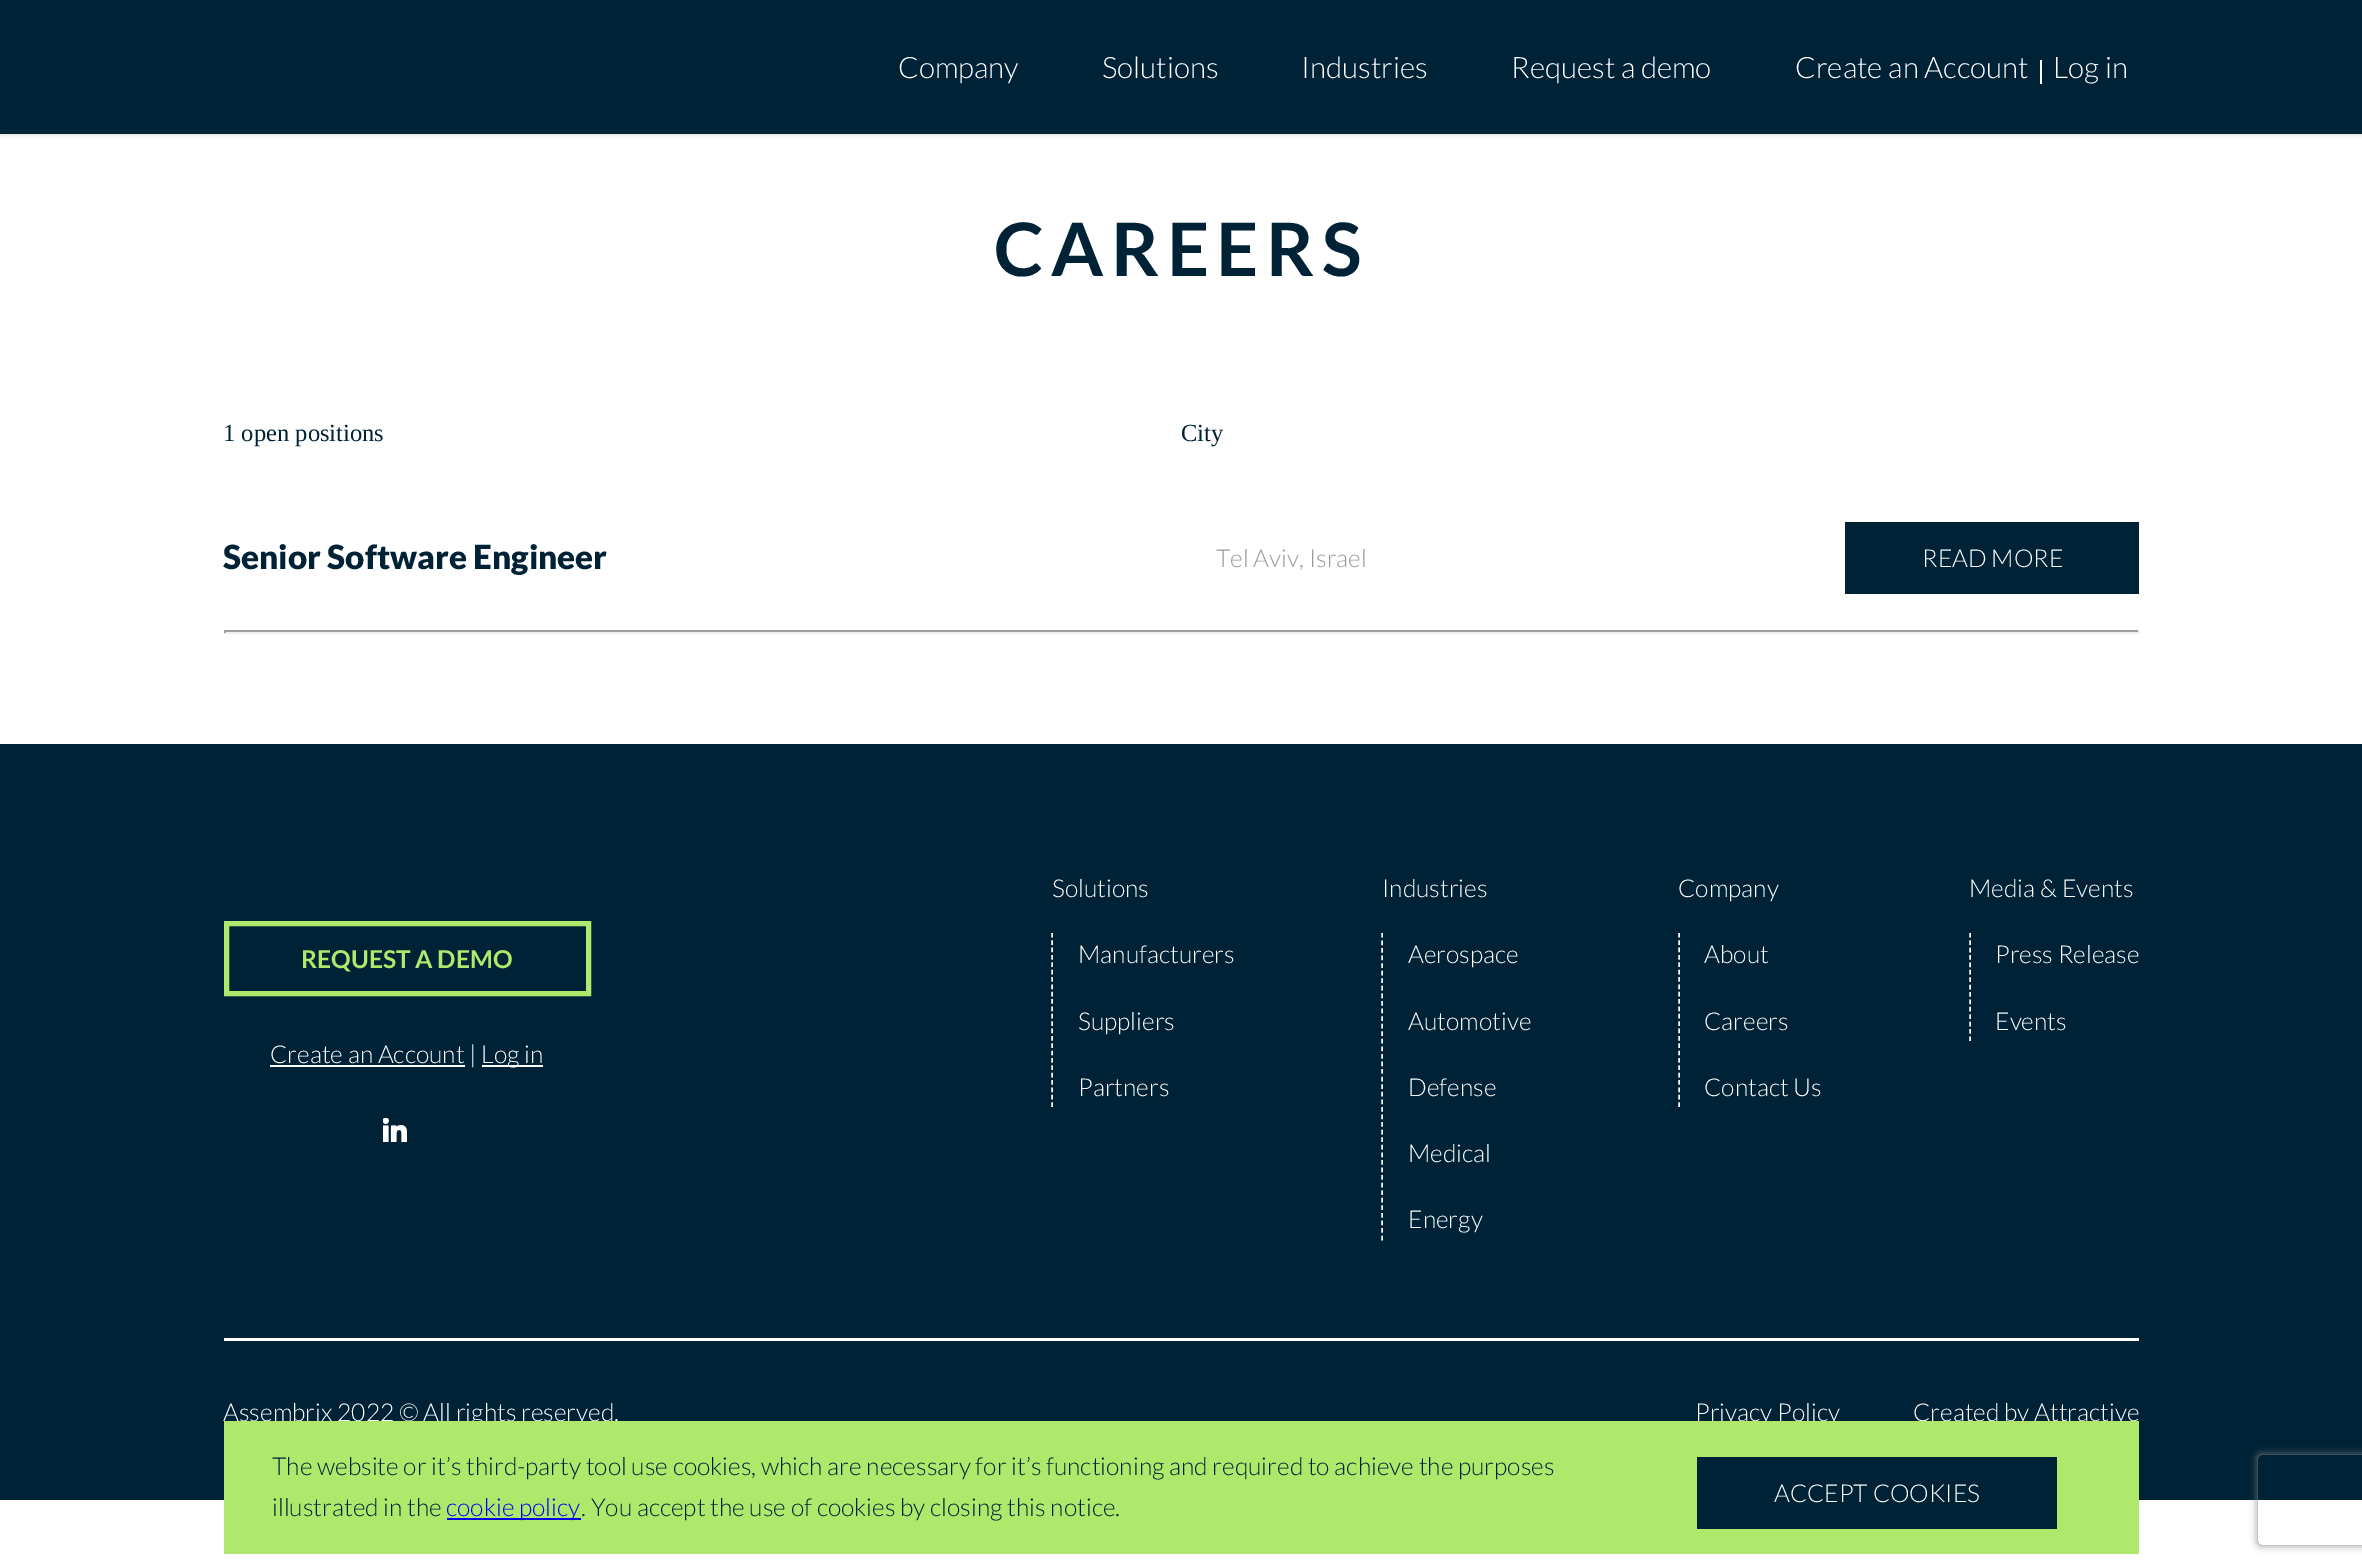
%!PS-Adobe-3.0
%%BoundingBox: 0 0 2362 1566
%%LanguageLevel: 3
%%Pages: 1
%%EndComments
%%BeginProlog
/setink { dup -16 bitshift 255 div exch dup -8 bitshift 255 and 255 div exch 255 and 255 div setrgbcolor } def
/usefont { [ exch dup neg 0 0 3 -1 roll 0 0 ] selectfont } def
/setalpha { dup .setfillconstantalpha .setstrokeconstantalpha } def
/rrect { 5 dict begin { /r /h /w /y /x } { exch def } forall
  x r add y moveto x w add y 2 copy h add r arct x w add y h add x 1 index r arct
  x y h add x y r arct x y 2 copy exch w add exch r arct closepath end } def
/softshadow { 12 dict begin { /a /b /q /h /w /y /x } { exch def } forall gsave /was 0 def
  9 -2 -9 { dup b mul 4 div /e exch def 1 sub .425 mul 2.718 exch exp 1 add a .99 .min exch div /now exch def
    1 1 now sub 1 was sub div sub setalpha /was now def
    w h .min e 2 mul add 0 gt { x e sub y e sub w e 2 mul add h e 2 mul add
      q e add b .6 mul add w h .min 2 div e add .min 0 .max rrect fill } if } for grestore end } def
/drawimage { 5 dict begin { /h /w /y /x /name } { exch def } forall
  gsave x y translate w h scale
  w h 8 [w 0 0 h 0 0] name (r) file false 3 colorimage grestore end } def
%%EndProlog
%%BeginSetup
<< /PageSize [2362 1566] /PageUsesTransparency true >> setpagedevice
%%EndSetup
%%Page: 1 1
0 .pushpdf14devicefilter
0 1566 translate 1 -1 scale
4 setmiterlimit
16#FFFFFF setink
0 0 2362 1566 rectfill
16#000000 setink
0 0 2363 134 0 3 0.2 softshadow
16#002236 setink
0 0 2362 134 rectfill
/Lato-Light 29.5 usefont
16#FFFFFF setink
[
    [(Company) 898 78]
    [(Solutions) 1102 78]
    [(Industries) 1301 78]
    [(Request a demo) 1511 78]
    [(Create an Account) 1795 78]
] { aload pop moveto show } forall
2040 60 2 24 rectfill
2053 78 moveto (Log in) show
/Lato-Bold 73.75 usefont
16#002236 setink
994 276 moveto 7.5 0 (CAREERS) ashow
/LiberationSerif-Regular 24.57 usefont
223 441 moveto (1 open positions) show
1181 441 moveto (City) show
/Lato-Black 33.25 usefont
223 569 moveto (Senior Software Engineer) show
/Lato-Light 24.57 usefont
16#999999 setink
1216 567 moveto (Tel Aviv, Israel) show
16#002236 setink
1845 522 294 72 rectfill
16#FFFFFF setink
1922 567 moveto (READ MORE) show
[
    [224 630 1915 2 16#9F9F9F]
    [2138 630 2 3 16#EEEEEE]
    [224 632 1915 2 16#EEEEEE]
    [224 630 2 3 16#9F9F9F]
    [0 744 2362 756 16#002236]
] { aload pop setink rectfill } forall
16#AFE86B setink
5 setlinewidth
226.5 923.5 362 70 rectstroke
/Lato-Bold 24.57 usefont
301 968 moveto (REQUEST A DEMO) show
16#FFFFFF setink
270 1065 195 2 rectfill
/Lato-Light 24.57 usefont
270 1063 moveto (Create an Account |) show
482 1065 61 2 rectfill
481 1063 moveto (Log in) show
(img1.raw) 383 1118 24 24 drawimage
1052 897 moveto (Solutions) show
1.5 setlinewidth
[4.5 2.86] 0 setdash
1052 933 moveto 1052 1107 lineto stroke
[
    [(Manufacturers) 1078 963]
    [(Suppliers) 1078 1030]
    [(Partners) 1078 1096]
    [(Industries) 1382 897]
] { aload pop moveto show } forall
[4.5 3.07] 0 setdash
1382 933 moveto 1382 1240.5 lineto stroke
[
    [(Aerospace) 1408 963]
    [(Automotive) 1408 1030]
    [(Defense) 1408 1096]
    [(Medical) 1408 1162]
    [(Energy) 1408 1228]
    [(Company) 1678 897]
] { aload pop moveto show } forall
[4.5 2.86] 0 setdash
1679 933 moveto 1679 1107 lineto stroke
[
    [(About) 1704 963]
    [(Careers) 1704 1030]
    [(Contact Us) 1704 1096]
    [(Media & Events) 1969 897]
] { aload pop moveto show } forall
[4.5 2.9] 0 setdash
1970 933 moveto 1970 1041 lineto stroke
1995 963 moveto (Press Release) show
1995 1030 moveto (Events) show
224 1338 1915 3 rectfill
[
    [(Assembrix 2022 © All rights reserved.) 223 1421]
    [(Privacy Policy) 1695 1421]
    [(Created by Attractive) 1913 1421]
] { aload pop moveto show } forall
16#AFE86B setink
224 1421 1915 133 rectfill
16#002236 setink
272 1475 moveto (The website or it’s third-party tool use cookies, which are necessary for it’s functioning and required to achieve the purposes) show
272 1516 moveto (illustrated in the) show
16#0000EE setink
447 1518 134 2 rectfill
446 1516 moveto (cookie policy) show
16#002236 setink
581 1516 moveto (. You accept the use of cookies by closing this notice.) show
1697 1457 360 72 rectfill
16#FFFFFF setink
1774 1502 moveto (ACCEPT COOKIES) show
gsave
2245 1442 moveto 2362 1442 lineto 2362 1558 lineto 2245 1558 lineto closepath 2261 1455 moveto 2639 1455 lineto 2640.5 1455 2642 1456.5 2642 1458 curveto 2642 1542 lineto 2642 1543.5 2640.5 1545 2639 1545 curveto 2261 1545 lineto 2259.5 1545 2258 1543.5 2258 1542 curveto 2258 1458 lineto 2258 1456.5 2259.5 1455 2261 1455 curveto closepath eoclip newpath
16#808080 setink
2258 1455 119 90 3 4 1 softshadow
grestore
.poppdf14devicefilter showpage
%%EOF
